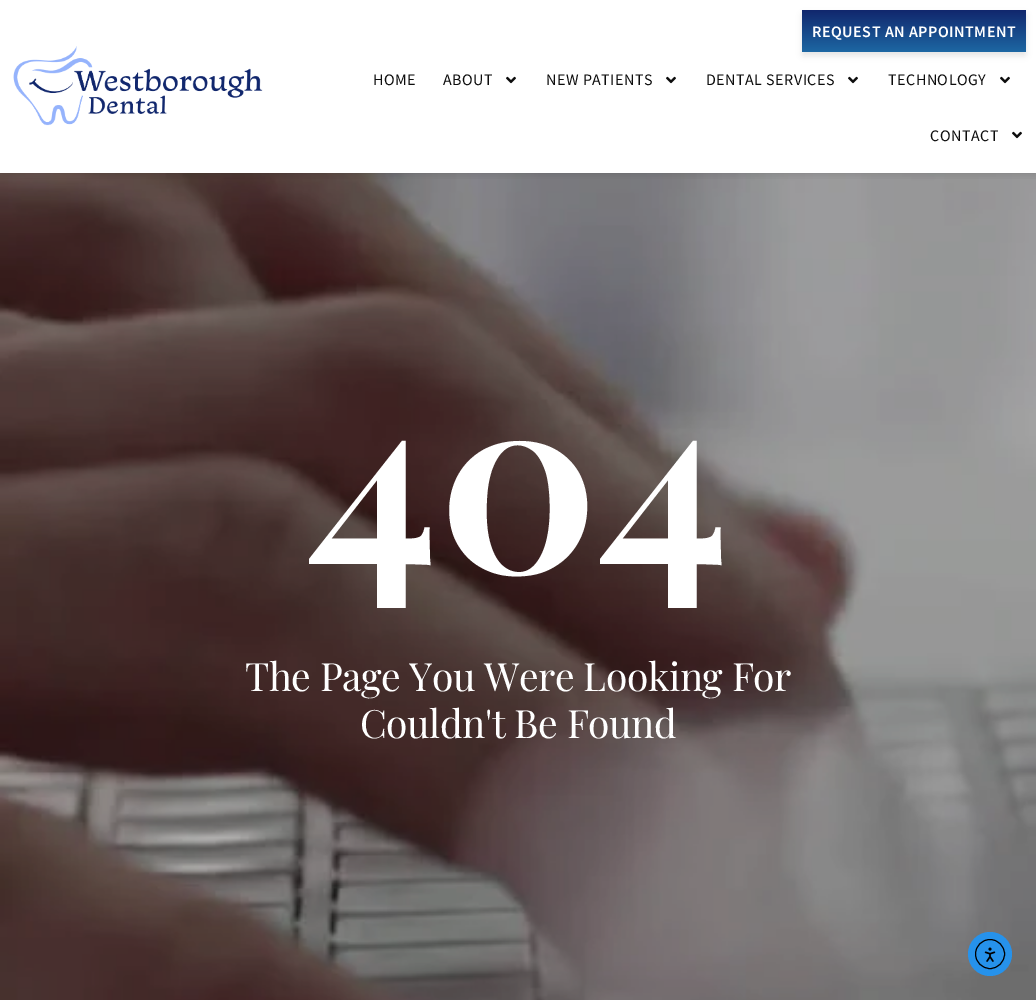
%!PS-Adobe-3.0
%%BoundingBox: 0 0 1036 1000
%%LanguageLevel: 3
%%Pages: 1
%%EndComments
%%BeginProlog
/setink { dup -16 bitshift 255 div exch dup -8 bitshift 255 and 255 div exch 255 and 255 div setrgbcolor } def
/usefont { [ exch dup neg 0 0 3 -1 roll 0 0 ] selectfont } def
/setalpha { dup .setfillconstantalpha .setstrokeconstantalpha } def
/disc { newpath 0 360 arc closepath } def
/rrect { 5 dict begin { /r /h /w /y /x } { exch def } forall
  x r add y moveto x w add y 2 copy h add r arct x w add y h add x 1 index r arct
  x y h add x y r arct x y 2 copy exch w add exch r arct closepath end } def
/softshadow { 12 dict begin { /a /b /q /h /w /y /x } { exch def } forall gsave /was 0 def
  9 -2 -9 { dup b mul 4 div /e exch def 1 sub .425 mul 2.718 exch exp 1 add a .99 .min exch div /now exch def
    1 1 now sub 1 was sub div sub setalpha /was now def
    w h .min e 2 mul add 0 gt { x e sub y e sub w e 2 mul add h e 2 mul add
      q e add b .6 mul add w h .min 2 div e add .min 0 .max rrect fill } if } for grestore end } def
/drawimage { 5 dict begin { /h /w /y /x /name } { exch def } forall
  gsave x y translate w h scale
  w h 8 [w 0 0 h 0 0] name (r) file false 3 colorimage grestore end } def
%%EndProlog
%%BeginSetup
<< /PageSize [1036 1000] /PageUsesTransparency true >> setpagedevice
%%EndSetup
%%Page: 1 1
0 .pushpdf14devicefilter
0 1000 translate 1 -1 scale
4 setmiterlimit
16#FFFFFF setink
0 0 1036 1000 rectfill
(img3.raw) 0 173 1036 827 drawimage
gsave
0 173 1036 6 rectclip
16#000000 setink
0 0 1036 173 0 5 0.15 softshadow
grestore
(img1.raw) 13 46 250 80 drawimage
16#000000 setink
802 14 224 42 2 3 0.1 softshadow
gsave 802 10 224 42 2 rrect clip newpath
<< /ShadingType 2 /ColorSpace /DeviceRGB /Coords [914 10 914 94] /Extend [true true] /Function << /FunctionType 2 /Domain [0 1] /C0 [0.067 0.153 0.427] /C1 [0.161 0.655 0.851] /N 1 >> >> shfill grestore
/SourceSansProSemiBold-SemiBold 16 usefont
16#FFFFFF setink
812 37 moveto 0.5 0 (REQUEST AN APPOINTMENT) ashow
/SourceSansPro-Regular 16 usefont
16#0D0D0D setink
373 85 moveto 0.5 0 (HOME) ashow
443 85 moveto 0.5 0 (ABOUT) ashow
(img2.raw) 506 76 10 8 drawimage
546 85 moveto 0.5 0 (NEW PATIENTS) ashow
(img2.raw) 666 76 10 8 drawimage
706 85 moveto 0.5 0 (DENTAL SERVICES) ashow
(img2.raw) 848 76 10 8 drawimage
888 85 moveto 0.5 0 (TECHNOLOGY) ashow
(img2.raw) 1000 76 10 8 drawimage
930 141 moveto 0.5 0 (CONTACT) ashow
(img2.raw) 1012 131 10 8 drawimage
/PlayfairDisplay-Bold 249 usefont
16#FFFFFF setink
307 573 moveto -0.5 0 (404) ashow
/PlayfairDisplay-Regular 39 usefont
245 691 moveto -0.5 0 (The Page You Were Looking For) ashow
360 738 moveto -0.5 0 (Couldn't Be Found) ashow
16#2692EB setink
990 954 22 disc fill
16#000000 setink
990 954 14.5 disc stroke
(img4.raw) 984 947 12 15 drawimage
.poppdf14devicefilter showpage
%%EOF
